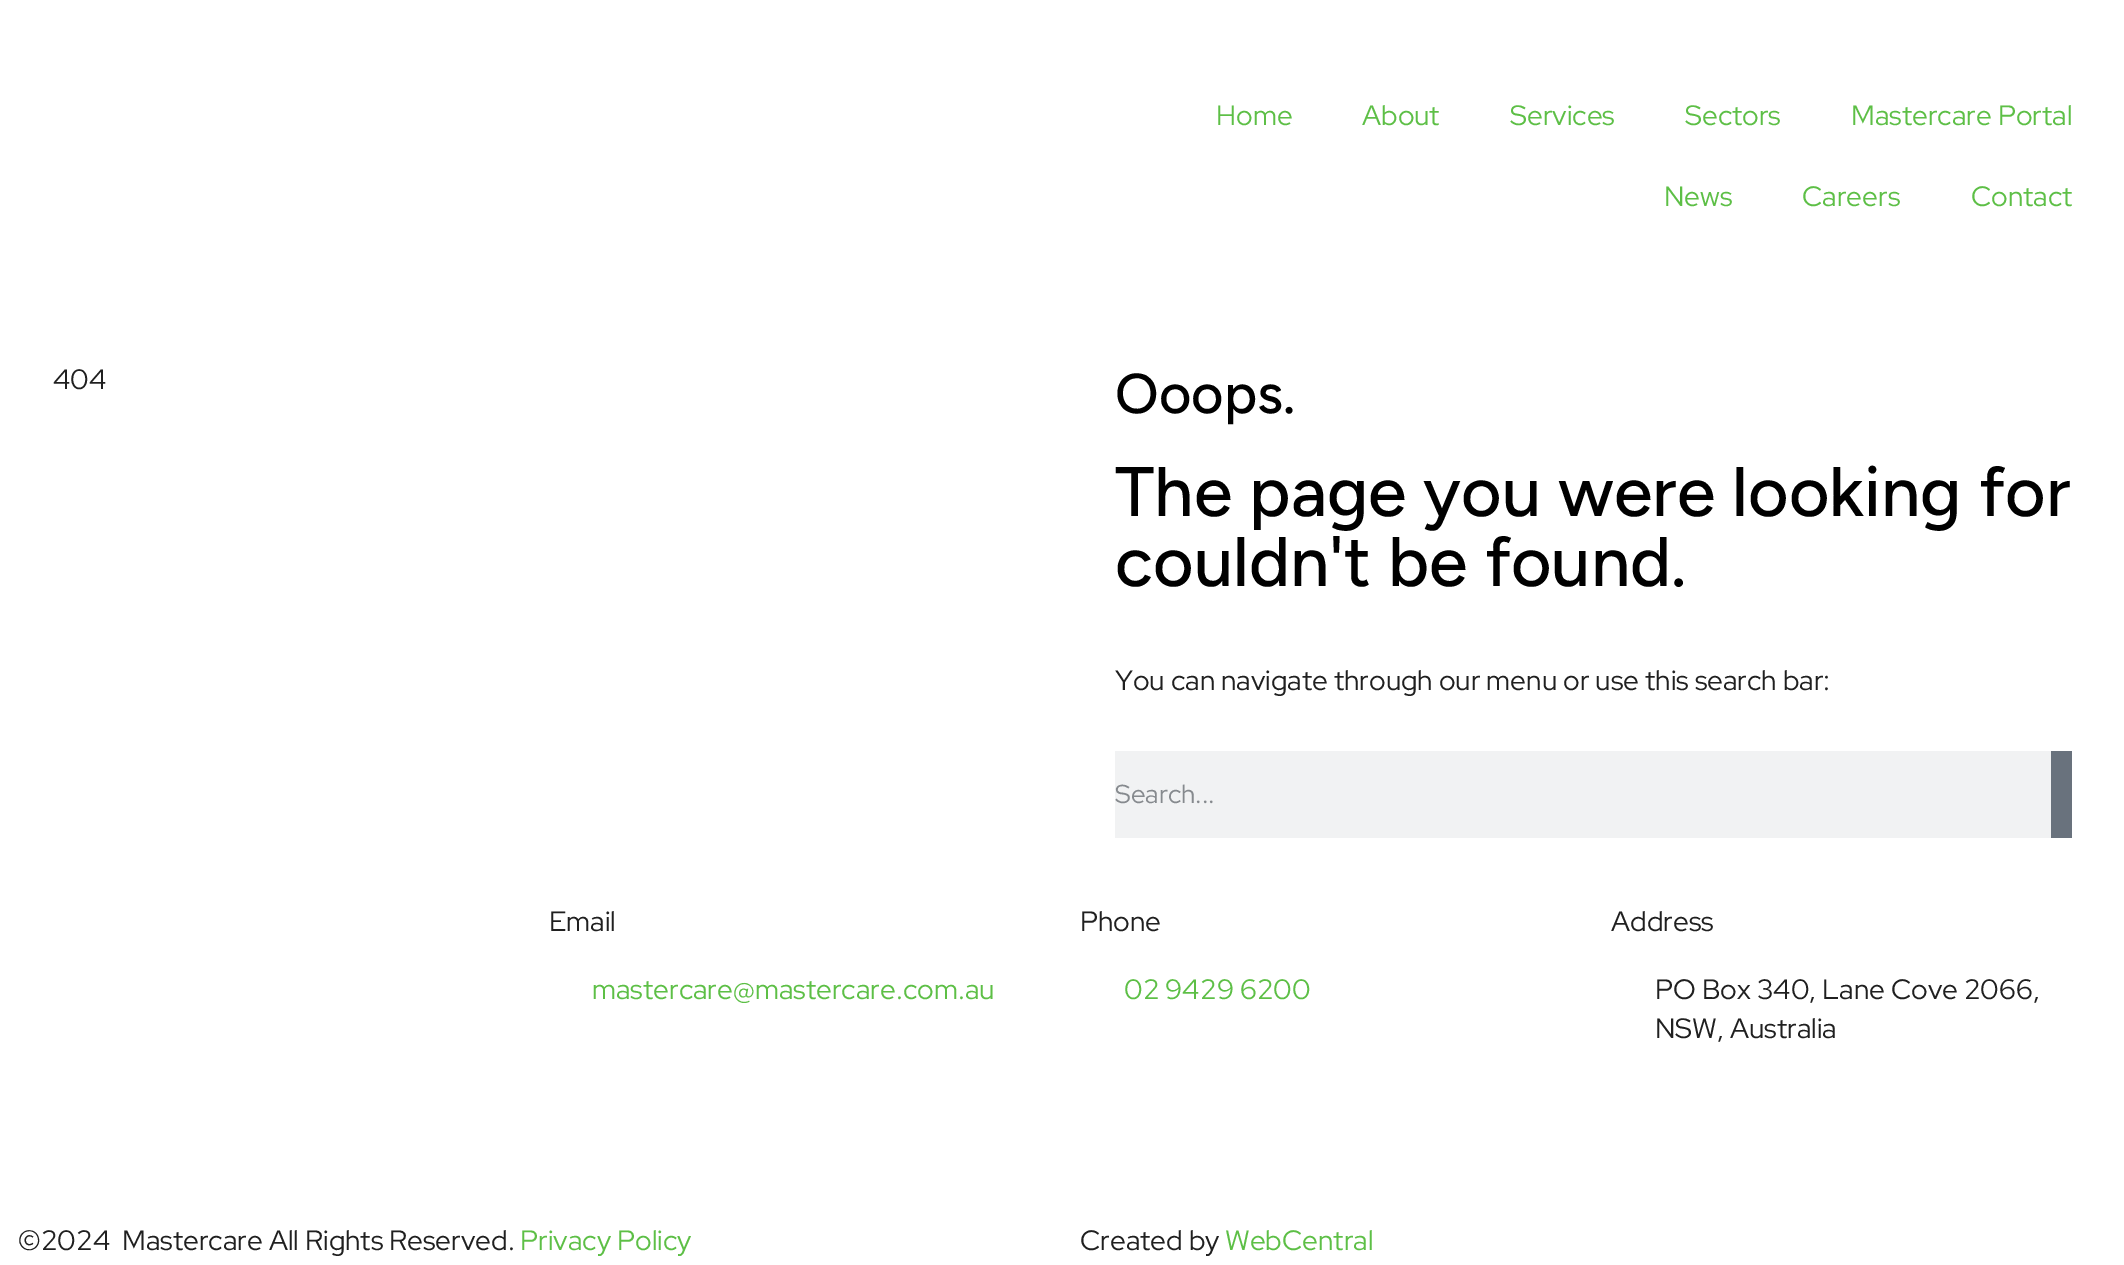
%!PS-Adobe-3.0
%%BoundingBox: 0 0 2124 1265
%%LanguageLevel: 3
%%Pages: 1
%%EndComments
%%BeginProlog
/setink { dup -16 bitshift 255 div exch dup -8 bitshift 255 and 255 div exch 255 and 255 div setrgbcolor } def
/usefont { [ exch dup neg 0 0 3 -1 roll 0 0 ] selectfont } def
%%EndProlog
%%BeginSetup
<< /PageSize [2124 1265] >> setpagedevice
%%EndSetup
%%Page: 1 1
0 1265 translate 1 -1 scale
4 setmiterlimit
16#FFFFFF setink
0 0 2124 1265 rectfill
/RedHatDisplay-Regular 28 usefont
16#5DBF46 setink
[
    [(Home) 1216 125]
    [(About) 1362 125]
    [(Services) 1510 125]
    [(Sectors) 1685 125]
    [(Mastercare Portal) 1851 125]
    [(News) 1664 206]
    [(Careers) 1802 206]
    [(Contact) 1971 206]
] { aload pop moveto show } forall
16#202020 setink
53 389 moveto (404) show
/Figtree-Medium 56 usefont
16#000000 setink
1115 413 moveto (Ooops.) show
/Figtree-Medium 70 usefont
1115 516 moveto (The page you were looking for) show
1115 586 moveto (couldn't be found.) show
/RedHatDisplay-Regular 28 usefont
16#202020 setink
1115 690 moveto (You can navigate through our menu or use this search bar:) show
16#F1F2F3 setink
1115 751 936 87 rectfill
/RedHatDisplay-Regular 26 usefont
16#868A8E setink
1115 803 moveto (Search...) show
16#69727D setink
2051 751 21 87 rectfill
/RedHatDisplay-Regular 28 usefont
16#202020 setink
549 931 moveto (Email) show
16#5DBF46 setink
592 999 moveto (mastercare@mastercare.com.au) show
16#202020 setink
1080 931 moveto (Phone) show
16#5DBF46 setink
1124 999 moveto (02 9429 6200) show
16#202020 setink
[
    [(Address) 1611 931]
    [(PO Box 340, Lane Cove 2066,) 1655 999]
    [(NSW, Australia) 1655 1038]
    [(©2024  Mastercare All Rights Reserved.) 18 1250]
] { aload pop moveto show } forall
16#5DBF46 setink
520 1250 moveto (Privacy Policy) show
16#202020 setink
1080 1250 moveto (Created by) show
16#5DBF46 setink
1225 1250 moveto (WebCentral) show
showpage
%%EOF
